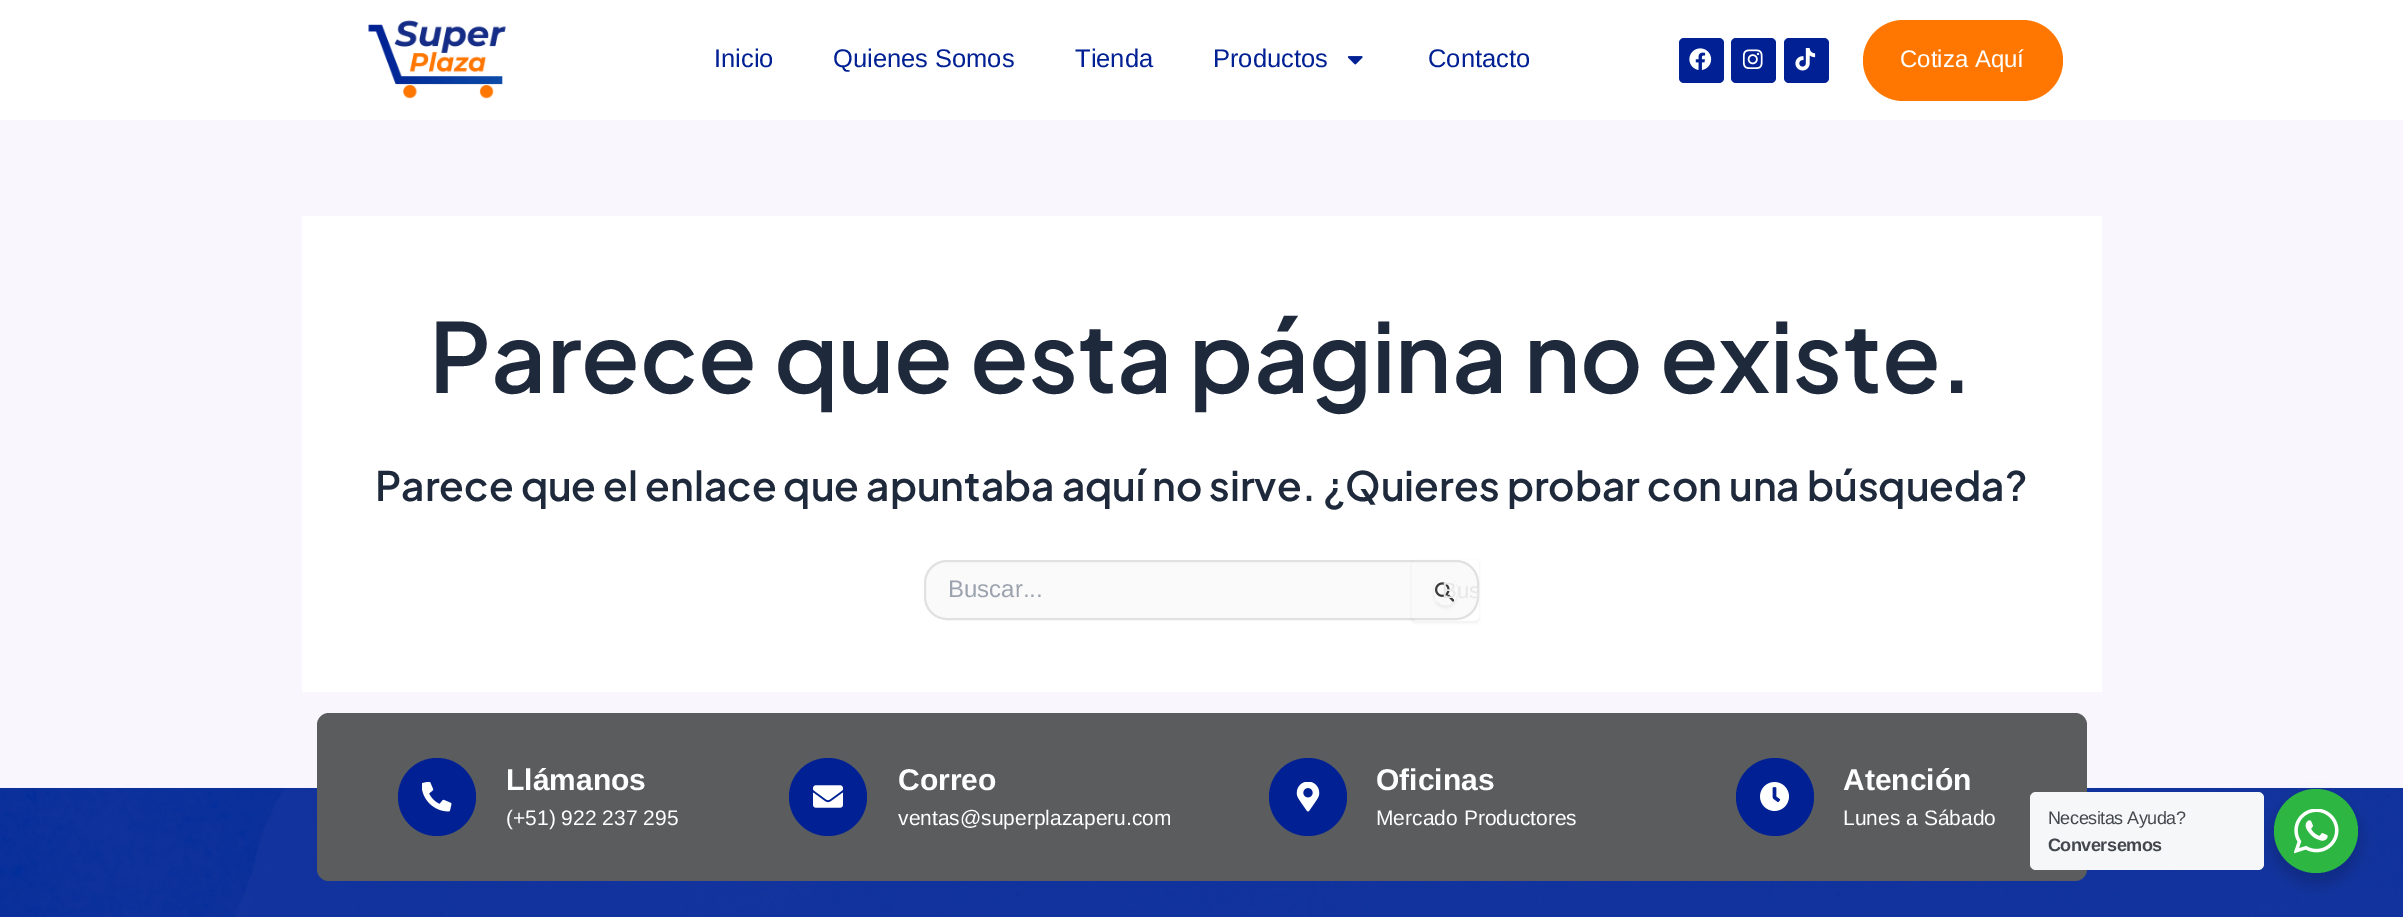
%!PS-Adobe-3.0
%%BoundingBox: 0 0 2403 917
%%LanguageLevel: 3
%%Pages: 1
%%EndComments
%%BeginProlog
/setink { dup -16 bitshift 255 div exch dup -8 bitshift 255 and 255 div exch 255 and 255 div setrgbcolor } def
/usefont { [ exch dup neg 0 0 3 -1 roll 0 0 ] selectfont } def
/setalpha { dup .setfillconstantalpha .setstrokeconstantalpha } def
/disc { newpath 0 360 arc closepath } def
/rrect { 5 dict begin { /r /h /w /y /x } { exch def } forall
  x r add y moveto x w add y 2 copy h add r arct x w add y h add x 1 index r arct
  x y h add x y r arct x y 2 copy exch w add exch r arct closepath end } def
/softshadow { 12 dict begin { /a /b /q /h /w /y /x } { exch def } forall gsave /was 0 def
  9 -2 -9 { dup b mul 4 div /e exch def 1 sub .425 mul 2.718 exch exp 1 add a .99 .min exch div /now exch def
    1 1 now sub 1 was sub div sub setalpha /was now def
    w h .min e 2 mul add 0 gt { x e sub y e sub w e 2 mul add h e 2 mul add
      q e add b .6 mul add w h .min 2 div e add .min 0 .max rrect fill } if } for grestore end } def
/drawimage { 5 dict begin { /h /w /y /x /name } { exch def } forall
  gsave x y translate w h scale
  w h 8 [w 0 0 h 0 0] name (r) file false 3 colorimage grestore end } def
%%EndProlog
%%BeginSetup
<< /PageSize [2403 917] /PageUsesTransparency true >> setpagedevice
%%EndSetup
%%Page: 1 1
0 .pushpdf14devicefilter
0 917 translate 1 -1 scale
4 setmiterlimit
16#F9F6FE setink
0 0 2403 917 rectfill
16#FFFFFF setink
0 0 2403 120 rectfill
(img1.raw) 368 20 138 79 drawimage
/LiberationSans-Regular 25.5 usefont
16#002093 setink
[
    [(Inicio) 714 67]
    [(Quienes Somos) 833 67]
    [(Tienda) 1075 67]
    [(Productos) 1213 67]
] { aload pop moveto show } forall
(img2.raw) 1347 56 16 9 drawimage
1428 67 moveto (Contacto) show
1679 38 45 45 5 rrect fill
(img3.raw) 1689 48 23 22 drawimage
1731 38 45 45 5 rrect fill
(img4.raw) 1742 49 21 20 drawimage
1784 38 45 45 5 rrect fill
(img5.raw) 1795 48 21 23 drawimage
16#FF7701 setink
1863 20 200 81 40.5 rrect fill
/LiberationSans-Regular 24 usefont
16#FFFFFF setink
1900 67 moveto (Cotiza Aquí) show
302 216 1800 476 rectfill
/PlusJakartaSans-SemiBold 96 usefont
16#1E293B setink
429 393 moveto (Parece que esta página no existe.) show
/PlusJakartaSans-SemiBold 40.5 usefont
375 501 moveto (Parece que el enlace que apuntaba aquí no sirve. ¿Quieres probar con una búsqueda?) show
16#FAFAFA setink
925 561 553 58 22 rrect gsave fill grestore
16#E1E1E1 setink
2 setlinewidth
stroke
/LiberationSans-Regular 24 usefont
16#9CA3AF setink
948 597 moveto (Buscar...) show
gsave
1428 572 moveto 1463 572 lineto 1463 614 lineto 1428 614 lineto closepath 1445.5 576 moveto 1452 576 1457 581 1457 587.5 curveto 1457 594.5 lineto 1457 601 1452 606 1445.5 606 curveto 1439 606 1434 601 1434 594.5 curveto 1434 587.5 lineto 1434 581 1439 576 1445.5 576 curveto closepath eoclip newpath
16#000000 setink
1434 578 23 30 11.5 1.5 0.05 softshadow
grestore
(img6.raw) 1435 582 19 20 drawimage
gsave
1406 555 moveto 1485 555 lineto 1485 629 lineto 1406 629 lineto closepath 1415 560 moveto 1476 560 lineto 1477.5 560 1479 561.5 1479 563 curveto 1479 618 lineto 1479 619.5 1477.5 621 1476 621 curveto 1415 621 lineto 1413.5 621 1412 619.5 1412 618 curveto 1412 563 lineto 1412 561.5 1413.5 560 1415 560 curveto closepath eoclip newpath
16#000000 setink
1412 561 67 62 3 1.5 0.05 softshadow
grestore
gsave
1412 560 67 61 3 rrect clip newpath
/LiberationSans-Regular 22 usefont
16#E7E7E7 setink
1442 598 moveto (Bus) show
grestore
16#002093 setink
0 788 2403 129 rectfill
(img11.raw) 0 787 2403 130 drawimage
16#5A5C5E setink
317 713 1770 168 12 rrect fill
16#002093 setink
437 797 39 disc fill
(img7.raw) 422 782 30 30 drawimage
/LiberationSans-Bold 30 usefont
16#FFFFFF setink
506 790 moveto (Llámanos) show
/LiberationSans-Regular 21 usefont
506 825 moveto (\(+51\) 922 237 295) show
16#002093 setink
828 797 39 disc fill
(img8.raw) 813 785 30 23 drawimage
/LiberationSans-Bold 30 usefont
16#FFFFFF setink
898 790 moveto (Correo) show
/LiberationSans-Regular 21 usefont
898 825 moveto (ventas@superplazaperu.com) show
16#002093 setink
1308 797 39 disc fill
(img9.raw) 1296 782 24 30 drawimage
/LiberationSans-Bold 30 usefont
16#FFFFFF setink
1376 790 moveto (Oficinas) show
/LiberationSans-Regular 21 usefont
1376 825 moveto (Mercado Productores) show
16#002093 setink
1775 797 39 disc fill
(img10.raw) 1760 782 29 29 drawimage
/LiberationSans-Bold 30 usefont
16#FFFFFF setink
1843 790 moveto (Atención) show
/LiberationSans-Regular 21 usefont
1843 825 moveto (Lunes a Sábado) show
16#000000 setink
2271 795 90 90 45 6 0.14 softshadow
16#F5F7F9 setink
2030 792 234 78 6 rrect fill
/LiberationSans-Regular 18 usefont
16#43474E setink
2048 824 moveto -0.5 0 (Necesitas Ayuda?) ashow
/LiberationSans-Bold 18 usefont
2048 851 moveto -0.5 0 (Conversemos) ashow
16#2DB742 setink
2316 831 42 disc fill
(img12.raw) 2294 809 45 45 drawimage
.poppdf14devicefilter showpage
%%EOF
